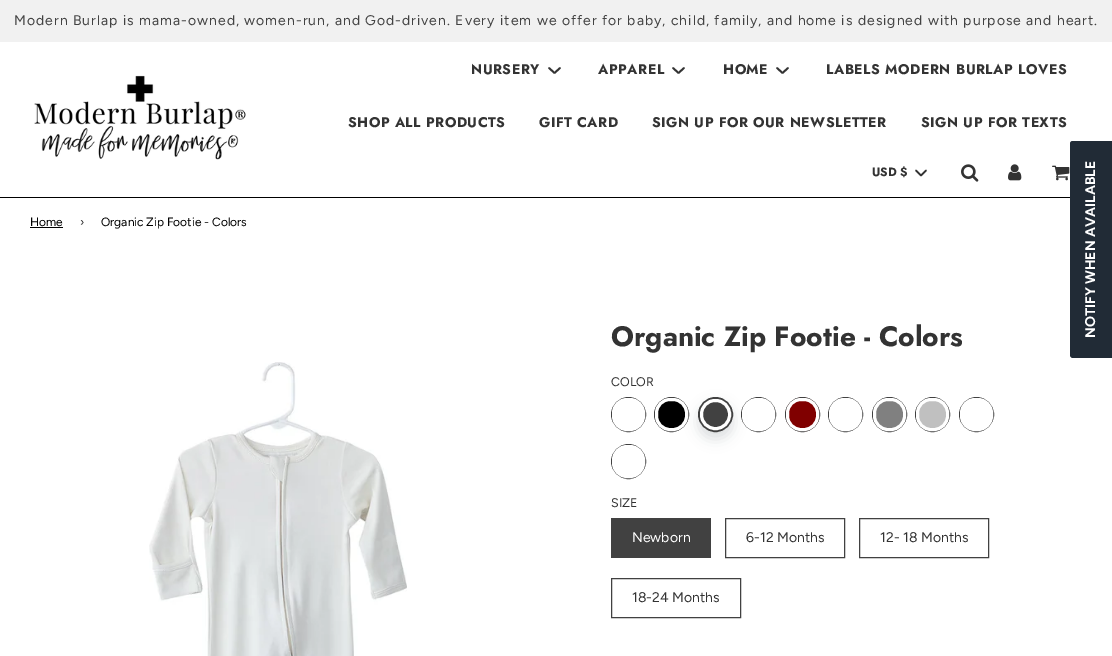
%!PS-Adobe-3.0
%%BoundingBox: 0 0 1112 656
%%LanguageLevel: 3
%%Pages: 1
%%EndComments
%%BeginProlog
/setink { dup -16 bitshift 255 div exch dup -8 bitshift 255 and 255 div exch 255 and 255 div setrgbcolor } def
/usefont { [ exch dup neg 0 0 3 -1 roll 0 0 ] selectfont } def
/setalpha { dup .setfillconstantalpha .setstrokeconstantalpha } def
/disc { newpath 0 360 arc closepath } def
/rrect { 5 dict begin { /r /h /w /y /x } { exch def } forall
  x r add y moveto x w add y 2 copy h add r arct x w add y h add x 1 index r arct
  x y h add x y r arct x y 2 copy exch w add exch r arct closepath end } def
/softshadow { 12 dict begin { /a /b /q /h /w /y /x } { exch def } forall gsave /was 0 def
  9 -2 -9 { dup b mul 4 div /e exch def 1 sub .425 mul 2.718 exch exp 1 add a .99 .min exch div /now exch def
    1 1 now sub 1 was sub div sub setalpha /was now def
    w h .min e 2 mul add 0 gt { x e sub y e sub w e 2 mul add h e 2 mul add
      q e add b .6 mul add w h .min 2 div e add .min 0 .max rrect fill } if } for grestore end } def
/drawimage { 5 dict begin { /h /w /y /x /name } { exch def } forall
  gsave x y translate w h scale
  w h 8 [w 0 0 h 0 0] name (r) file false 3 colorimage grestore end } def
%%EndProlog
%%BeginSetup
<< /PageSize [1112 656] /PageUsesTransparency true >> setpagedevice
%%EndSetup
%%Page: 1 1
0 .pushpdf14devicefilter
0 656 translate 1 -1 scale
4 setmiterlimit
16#FFFFFF setink
0 0 1112 656 rectfill
16#F1F1F1 setink
0 0 1112 42 rectfill
/Figtree-Regular 14 usefont
16#424242 setink
14 25 moveto 1 0 (Modern Burlap is mama-owned, women-run, and God-driven. Every item we offer for baby, child, family, and home is designed with purpose and heart.) ashow
16#000000 setink
0 197 1070 1 rectfill
(img1.raw) 34 75 212 85 drawimage
/Jost-Bold 14 usefont
16#333333 setink
471 74 moveto 0.5 0 (NURSERY) ashow
1.8 setlinewidth
1 setlinecap
1 setlinejoin
549 68 moveto 554.5 73 lineto 560 68 lineto stroke
598 74 moveto 0.5 0 (APPAREL) ashow
673 68 moveto 678.5 73 lineto 684 68 lineto stroke
723 74 moveto 0.5 0 (HOME) ashow
777 68 moveto 782.5 73 lineto 788 68 lineto stroke
826 74 moveto 0.5 0 (LABELS MODERN BURLAP LOVES) ashow
348 127 moveto 0.5 0 (SHOP ALL PRODUCTS) ashow
539 127 moveto 0.5 0 (GIFT CARD) ashow
652 127 moveto 0.5 0 (SIGN UP FOR OUR NEWSLETTER) ashow
921 127 moveto 0.5 0 (SIGN UP FOR TEXTS) ashow
/Jost-Bold 12 usefont
872 176 moveto (USD $) show
1.7 setlinewidth
916 170.5 moveto 921 175.5 lineto 926 170.5 lineto stroke
(img2.raw) 961 164 18 18 drawimage
(img3.raw) 1008 164 14 17 drawimage
(img4.raw) 1052 165 18 16 drawimage
/Figtree-Regular 12 usefont
16#000000 setink
30 226 moveto (Home) show
30 227 33 1 rectfill
16#333333 setink
80 226 moveto (›) show
16#000000 setink
101 226 moveto (Organic Zip Footie - Colors) show
(img5.raw) 149 362 258 294 drawimage
/Jost-Bold 28 usefont
16#333333 setink
611 346 moveto (Organic Zip Footie - Colors) show
/Figtree-Regular 12.5 usefont
611 386 moveto (COLOR) show
16#414141 setink
1 setlinewidth
0 setlinecap
0 setlinejoin
628.5 414.5 17 disc stroke
16#FFFFFF setink
3 setlinewidth
613.5 399.5 30 30 13.5 rrect stroke
16#000000 setink
671.5 414.5 17 disc gsave fill grestore
16#414141 setink
1 setlinewidth
stroke
16#FFFFFF setink
3 setlinewidth
656.5 399.5 30 30 13.5 rrect stroke
16#565F66 setink
698 404 35 35 17.5 6.5 0.2 softshadow
16#414141 setink
715.5 414.5 16.5 disc gsave fill grestore
2 setlinewidth
stroke
16#FFFFFF setink
3 setlinewidth
701.5 400.5 28 28 13.5 rrect stroke
16#414141 setink
1 setlinewidth
758.5 414.5 17 disc stroke
16#FFFFFF setink
3 setlinewidth
743.5 399.5 30 30 13.5 rrect stroke
16#800000 setink
802.5 414.5 17 disc gsave fill grestore
16#414141 setink
1 setlinewidth
stroke
16#FFFFFF setink
3 setlinewidth
787.5 399.5 30 30 13.5 rrect stroke
16#414141 setink
1 setlinewidth
845.5 414.5 17 disc stroke
16#FFFFFF setink
3 setlinewidth
830.5 399.5 30 30 13.5 rrect stroke
16#808080 setink
889.5 414.5 17 disc gsave fill grestore
16#414141 setink
1 setlinewidth
stroke
16#FFFFFF setink
3 setlinewidth
874.5 399.5 30 30 13.5 rrect stroke
16#C0C0C0 setink
932.5 414.5 17 disc gsave fill grestore
16#414141 setink
1 setlinewidth
stroke
16#FFFFFF setink
3 setlinewidth
917.5 399.5 30 30 13.5 rrect stroke
16#414141 setink
1 setlinewidth
976.5 414.5 17 disc stroke
16#FFFFFF setink
3 setlinewidth
961.5 399.5 30 30 13.5 rrect stroke
16#414141 setink
1 setlinewidth
628.5 461.5 17 disc stroke
16#FFFFFF setink
3 setlinewidth
613.5 446.5 30 30 13.5 rrect stroke
16#333333 setink
611 507 moveto (SIZE) show
16#414141 setink
611 518 100 40 rectfill
/Figtree-Regular 14 usefont
16#FFFFFF setink
632 542 moveto (Newborn) show
16#414141 setink
1 setlinewidth
725.5 518.5 119 39 rectstroke
16#333333 setink
746 542 moveto (6-12 Months) show
16#414141 setink
859.5 518.5 129 39 rectstroke
16#333333 setink
880 542 moveto (12- 18 Months) show
16#414141 setink
611.5 578.5 129 39 rectstroke
16#333333 setink
632 602 moveto (18-24 Months) show
16#212B36 setink
1070 355 moveto 1070 144 lineto 1070 142 1071 141 1073 141 curveto 1112 141 lineto 1112 358 lineto 1073 358 lineto 1071 358 1070 356 1070 355 curveto closepath fill
/Figtree-Bold 14 usefont
16#FFFFFF setink
gsave 1095 338 translate -90 rotate 0 0 moveto (NOTIFY WHEN AVAILABLE) show grestore
.poppdf14devicefilter showpage
%%EOF
